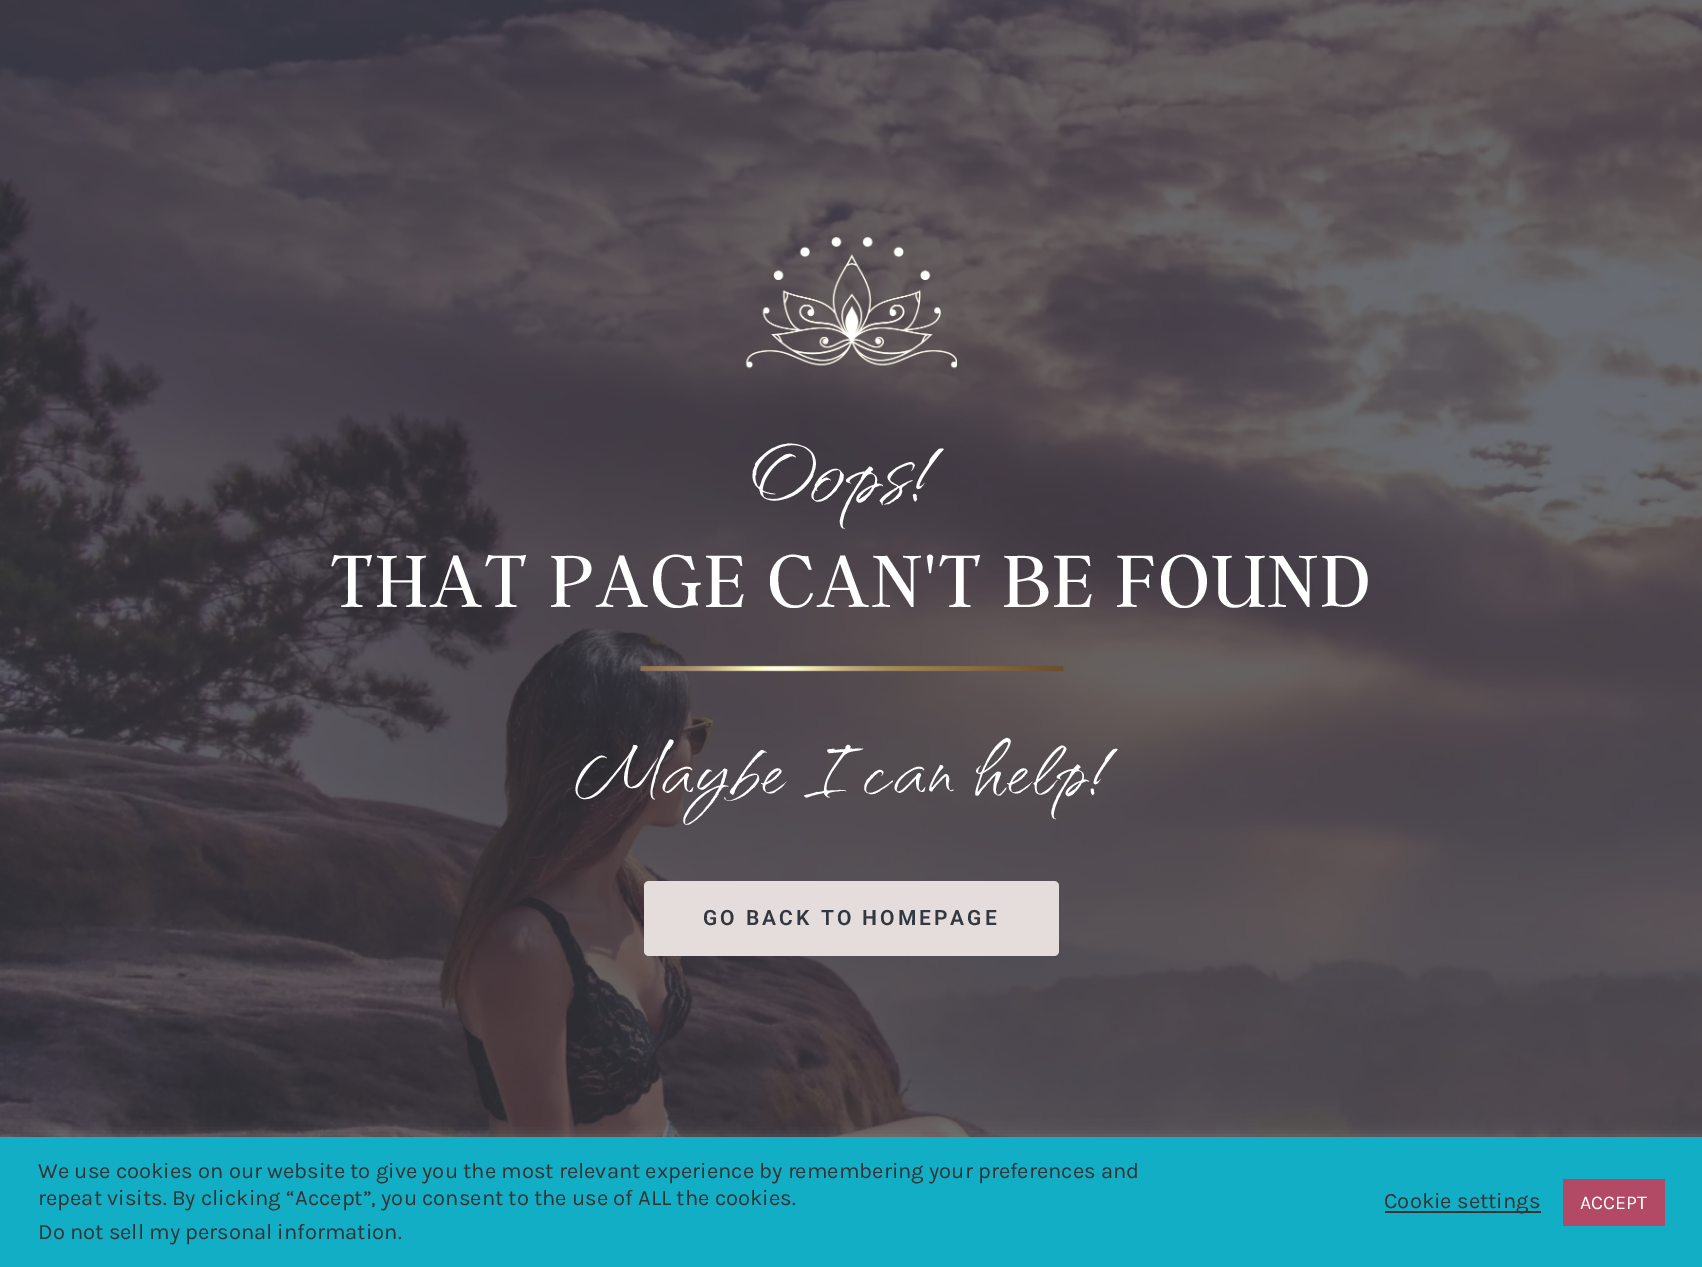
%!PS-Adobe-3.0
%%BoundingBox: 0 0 1702 1267
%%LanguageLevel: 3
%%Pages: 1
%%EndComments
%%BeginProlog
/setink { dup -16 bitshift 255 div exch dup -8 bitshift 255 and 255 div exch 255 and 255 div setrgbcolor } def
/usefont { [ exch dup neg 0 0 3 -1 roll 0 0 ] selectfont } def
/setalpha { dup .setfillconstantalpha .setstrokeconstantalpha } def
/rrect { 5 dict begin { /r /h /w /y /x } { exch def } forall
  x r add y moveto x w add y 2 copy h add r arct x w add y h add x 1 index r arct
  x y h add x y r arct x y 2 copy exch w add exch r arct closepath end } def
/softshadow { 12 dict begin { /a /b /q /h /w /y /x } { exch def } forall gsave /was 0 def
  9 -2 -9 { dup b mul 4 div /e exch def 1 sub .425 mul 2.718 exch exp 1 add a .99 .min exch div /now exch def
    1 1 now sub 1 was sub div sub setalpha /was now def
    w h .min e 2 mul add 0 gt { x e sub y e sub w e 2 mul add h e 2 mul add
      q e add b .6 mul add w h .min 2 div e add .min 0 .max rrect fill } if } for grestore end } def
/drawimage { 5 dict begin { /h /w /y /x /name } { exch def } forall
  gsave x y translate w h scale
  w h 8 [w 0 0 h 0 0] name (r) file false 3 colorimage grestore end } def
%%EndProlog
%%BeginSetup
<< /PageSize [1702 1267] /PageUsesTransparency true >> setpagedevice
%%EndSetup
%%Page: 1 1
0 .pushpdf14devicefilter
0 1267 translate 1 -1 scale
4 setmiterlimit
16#FFFFFF setink
0 0 1702 1267 rectfill
(img1.raw) 0 0 1702 1137 drawimage
(img2.raw) 745 237 212 132 drawimage
/QwitcherGrypen-Regular 120 usefont
750 499 moveto 1.5 0 (Oops!) ashow
/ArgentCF-Light 82.5 usefont
330 607 moveto 1.5 0 (THAT PAGE CAN'T BE FOUND) ashow
(img3.raw) 640 665 424 7 drawimage
/QwitcherGrypen-Regular 105 usefont
575 793 moveto 1.5 0 (Maybe I can help!) ashow
16#E5DDDC setink
644 881 415 75 5 rrect fill
/Roboto-SemiBold 21 usefont
16#333740 setink
703 925 moveto 3 0 (GO BACK TO HOMEPAGE) ashow
16#ACABAB setink
0 1136 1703 130 0 7.5 0.3 softshadow
16#11AEC6 setink
0 1137 1702 130 rectfill
/Karla-Regular 22 usefont
16#333333 setink
[
    [(We use cookies on our website to give you the most relevant experience by remembering your preferences and) 38 1178]
    [(repeat visits. By clicking “Accept”, you consent to the use of ALL the cookies.) 38 1205]
    [(Do not sell my personal information.) 38 1239]
] { aload pop moveto show } forall
1385 1211 156 2 rectfill
1384 1208 moveto (Cookie settings) show
16#B24A66 setink
1563 1179 102 47 rectfill
/Karla-Regular 19.5 usefont
16#FFFFFF setink
1580 1209 moveto (ACCEPT) show
.poppdf14devicefilter showpage
%%EOF
